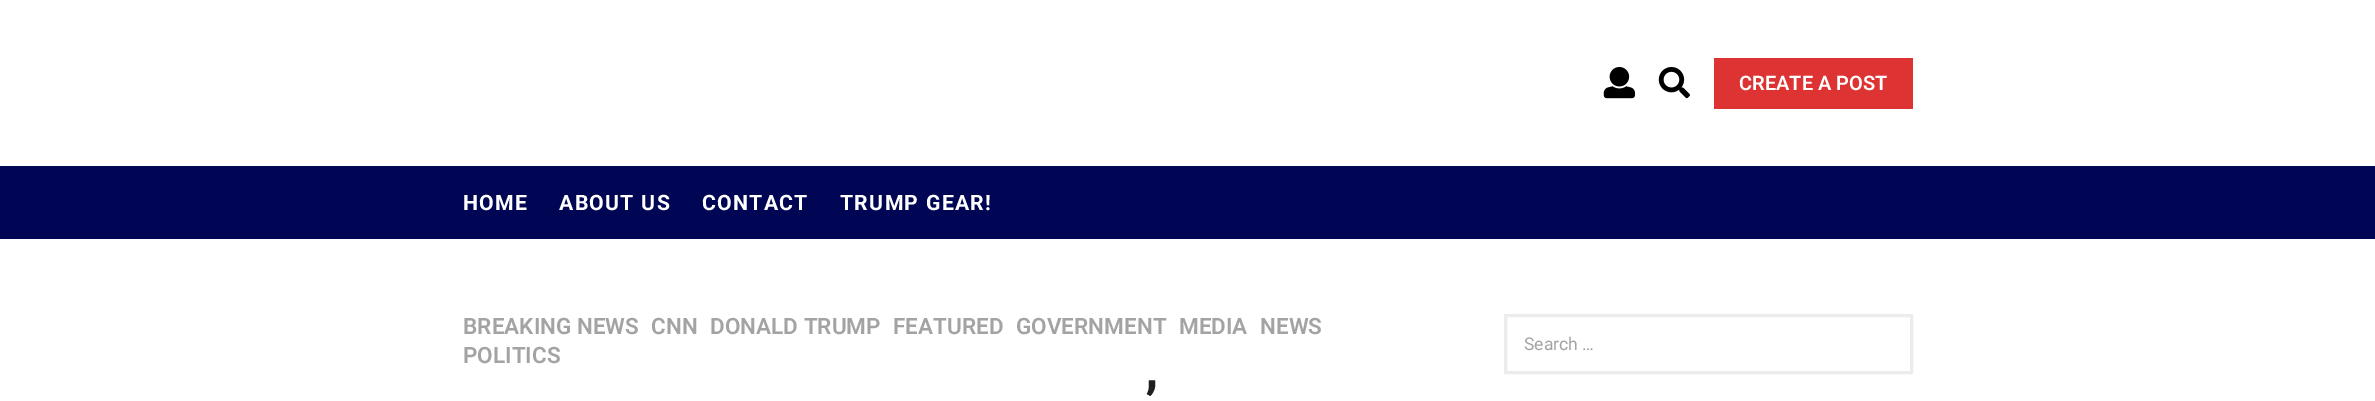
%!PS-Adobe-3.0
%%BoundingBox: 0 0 2375 401
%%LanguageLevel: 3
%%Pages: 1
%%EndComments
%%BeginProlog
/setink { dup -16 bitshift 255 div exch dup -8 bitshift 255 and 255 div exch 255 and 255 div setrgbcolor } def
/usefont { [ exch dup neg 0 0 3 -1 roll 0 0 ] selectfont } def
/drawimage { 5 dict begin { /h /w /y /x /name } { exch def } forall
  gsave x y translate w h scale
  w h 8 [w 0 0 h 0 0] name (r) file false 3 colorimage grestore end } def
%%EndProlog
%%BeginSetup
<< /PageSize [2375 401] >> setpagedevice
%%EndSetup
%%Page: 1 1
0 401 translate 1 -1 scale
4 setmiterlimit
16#FFFFFF setink
0 0 2375 401 rectfill
(img1.raw) 1603 67 32 32 drawimage
(img2.raw) 1658 67 32 32 drawimage
16#DD3333 setink
1714 58 199 51 rectfill
/Roboto-SemiBold 20 usefont
16#FFFFFF setink
1739 90 moveto (CREATE A POST) show
16#000654 setink
0 166 2375 73 rectfill
/Roboto-Bold 21.25 usefont
16#FFFFFF setink
463 210 moveto 1.25 0 (HOME) ashow
559 210 moveto 1.25 0 (ABOUT US) ashow
702 210 moveto 1.25 0 (CONTACT) ashow
840 210 moveto 1.25 0 (TRUMP GEAR!) ashow
/Roboto-SemiBold 22.5 usefont
16#A3A3A3 setink
[
    [(BREAKING NEWS) 463 334]
    [(CNN) 651 334]
    [(DONALD TRUMP) 710 334]
    [(FEATURED) 893 334]
    [(GOVERNMENT) 1016 334]
    [(MEDIA) 1179 334]
    [(NEWS) 1260 334]
    [(POLITICS) 463 363]
] { aload pop moveto show } forall
/RobotoSlab-SemiBold 56 usefont
16#1F1F1F setink
1145 423 moveto (’) show
16#ECECEC setink
3 setlinewidth
1505.5 315.5 406 57 rectstroke
/Roboto-Regular 17.5 usefont
16#A3A3A3 setink
1524 350 moveto (Search …) show
showpage
%%EOF
